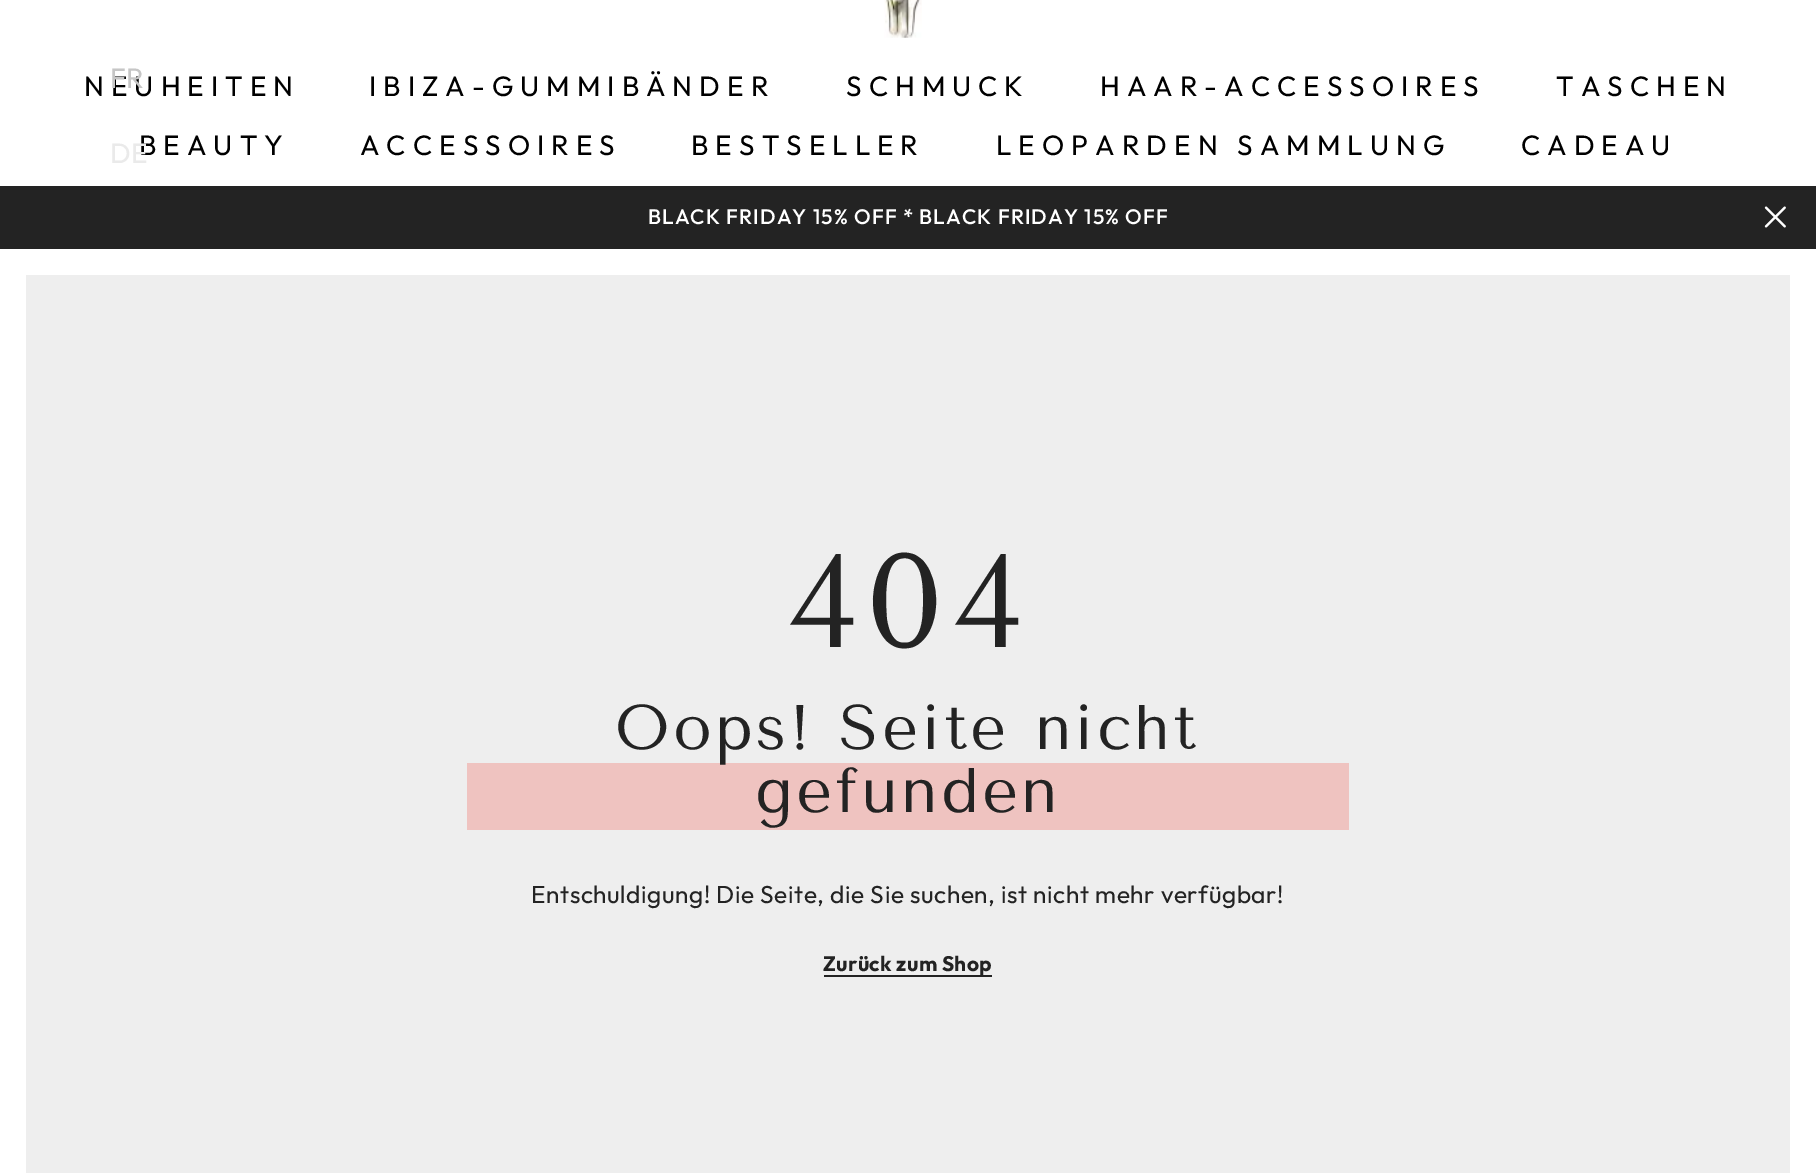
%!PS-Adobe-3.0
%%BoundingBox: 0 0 1816 1173
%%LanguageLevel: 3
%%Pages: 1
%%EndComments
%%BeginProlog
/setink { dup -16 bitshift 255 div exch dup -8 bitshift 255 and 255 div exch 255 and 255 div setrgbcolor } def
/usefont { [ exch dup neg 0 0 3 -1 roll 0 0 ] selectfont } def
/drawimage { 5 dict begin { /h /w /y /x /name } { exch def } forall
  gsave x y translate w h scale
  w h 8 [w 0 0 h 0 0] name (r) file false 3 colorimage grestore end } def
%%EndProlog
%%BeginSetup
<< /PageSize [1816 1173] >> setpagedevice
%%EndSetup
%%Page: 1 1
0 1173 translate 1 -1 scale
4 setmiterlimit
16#FFFFFF setink
0 0 1816 1173 rectfill
(img1.raw) 884 0 38 38 drawimage
/Outfit-Regular 28 usefont
16#000000 setink
84 96 moveto 7 0 (NEUHEITEN) ashow
16#C6C6C6 setink
110 88 moveto 0.55 0 (FR) ashow
16#000000 setink
139 155 moveto 7 0 (BEAUTY) ashow
16#EAEAEA setink
110 163 moveto 0.55 0 (DE) ashow
16#000000 setink
369 96 moveto 7 0 (IBIZA-GUMMIBÄNDER) ashow
846 96 moveto 7 0 (SCHMUCK) ashow
1100 96 moveto 7 0 (HAAR-ACCESSOIRES) ashow
1556 96 moveto 7 0 (TASCHEN) ashow
360 155 moveto 7 0 (ACCESSOIRES) ashow
691 155 moveto 7 0 (BESTSELLER) ashow
996 155 moveto 7 0 (LEOPARDEN SAMMLUNG) ashow
1521 155 moveto 7 0 (CADEAU) ashow
16#232323 setink
0 186 1816 63 rectfill
/Outfit-Medium 21 usefont
16#FFFFFF setink
648 224 moveto 1.05 0 (BLACK FRIDAY 15% OFF * BLACK FRIDAY 15% OFF) ashow
(img2.raw) 1764 206 22 22 drawimage
16#EEEEEE setink
26 275 1764 898 rectfill
/TenorSans-Regular 133 usefont
16#232323 setink
786 647 moveto 6.5 0 (404) ashow
16#EFC3C0 setink
467 763 882 67 rectfill
/TenorSans-Regular 63 usefont
16#232323 setink
615 749 moveto 3.1 0 (Oops! Seite nicht) ashow
755 812 moveto 3.1 0 (gefunden) ashow
/Outfit-Regular 24.5 usefont
531 903 moveto 0.55 0 (Entschuldigung! Die Seite, die Sie suchen, ist nicht mehr verfügbar!) ashow
824 975 168 2 rectfill
/Outfit-Bold 21 usefont
823 971 moveto 0.4 0 (Zurück zum Shop) ashow
showpage
%%EOF
